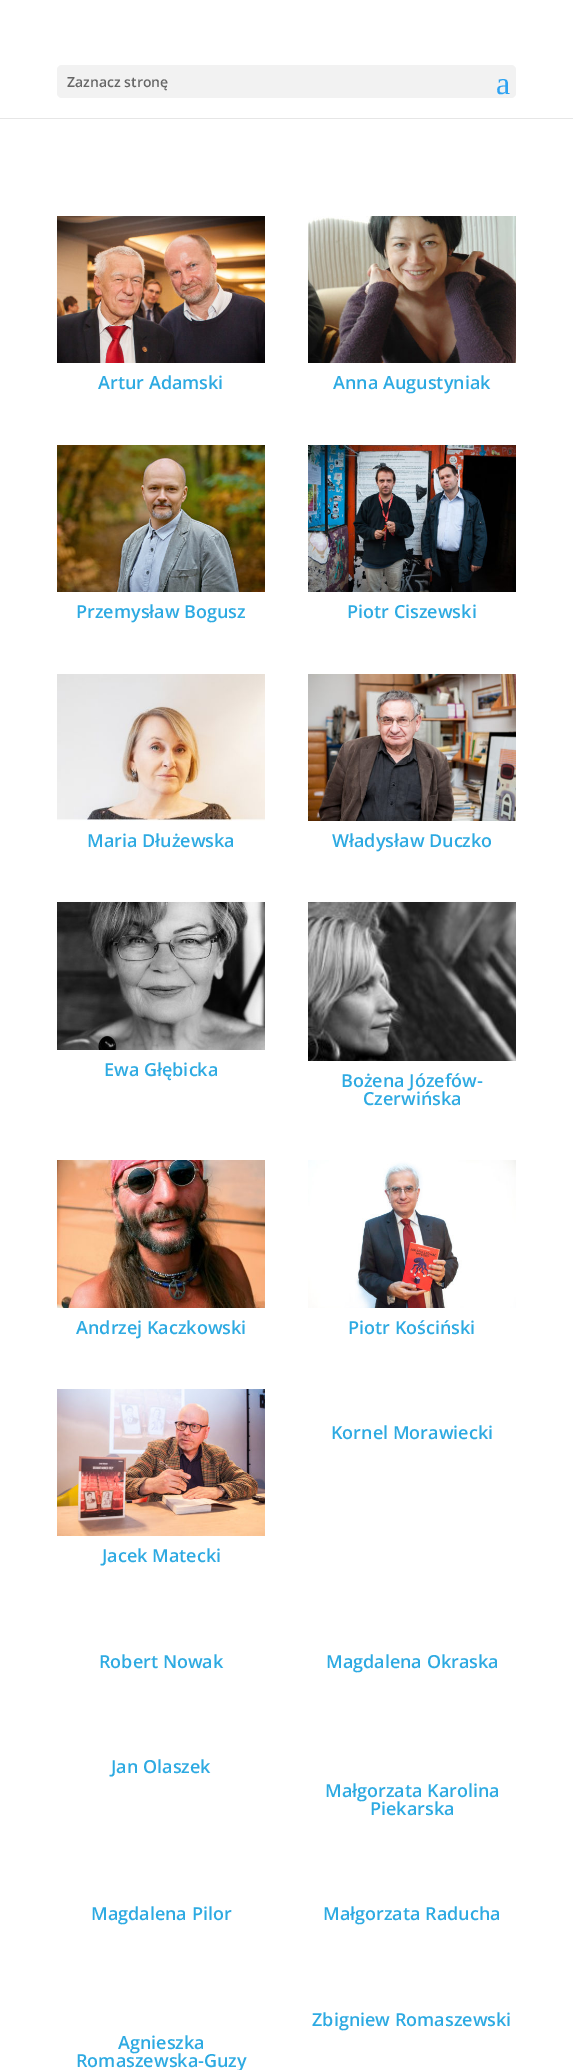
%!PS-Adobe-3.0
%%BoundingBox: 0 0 573 2070
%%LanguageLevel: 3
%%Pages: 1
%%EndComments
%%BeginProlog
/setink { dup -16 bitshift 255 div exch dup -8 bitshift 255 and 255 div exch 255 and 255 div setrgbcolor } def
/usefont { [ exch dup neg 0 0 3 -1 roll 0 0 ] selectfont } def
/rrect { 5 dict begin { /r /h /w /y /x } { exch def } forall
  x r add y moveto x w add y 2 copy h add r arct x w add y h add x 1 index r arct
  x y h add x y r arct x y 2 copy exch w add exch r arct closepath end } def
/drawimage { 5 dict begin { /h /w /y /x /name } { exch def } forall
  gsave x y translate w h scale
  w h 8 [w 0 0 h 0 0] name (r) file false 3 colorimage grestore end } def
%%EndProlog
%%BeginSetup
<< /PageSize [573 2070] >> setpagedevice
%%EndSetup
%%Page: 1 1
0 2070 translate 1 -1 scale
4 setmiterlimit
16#FFFFFF setink
0 0 573 2070 rectfill
16#E6E6E6 setink
0 118 573 1 rectfill
16#F2F2F2 setink
57 65 459 33 5 rrect fill
/OpenSans-SemiBold 14 usefont
16#666666 setink
67 87 moveto (Zaznacz stronę) show
/LiberationSerif-Regular 32 usefont
16#2EA3F2 setink
496 94 moveto (a) show
(img1.raw) 57 216 208 147 drawimage
/OpenSans-SemiBold 18 usefont
16#2DAAE2 setink
98 389 moveto (Artur Adamski) show
(img2.raw) 308 216 208 147 drawimage
333 389 moveto (Anna Augustyniak) show
(img3.raw) 57 445 208 147 drawimage
76 618 moveto (Przemysław Bogusz) show
(img4.raw) 308 445 208 147 drawimage
347 618 moveto (Piotr Ciszewski) show
(img5.raw) 57 674 208 147 drawimage
87 847 moveto (Maria Dłużewska) show
(img6.raw) 308 674 208 147 drawimage
332 847 moveto (Władysław Duczko) show
(img7.raw) 57 902 208 148 drawimage
104 1076 moveto (Ewa Głębicka) show
(img8.raw) 308 902 208 159 drawimage
341 1087 moveto (Bożena Józefów-) show
363 1105 moveto (Czerwińska) show
(img9.raw) 57 1160 208 148 drawimage
76 1334 moveto (Andrzej Kaczkowski) show
(img10.raw) 308 1160 208 148 drawimage
348 1334 moveto (Piotr Kościński) show
331 1439 moveto (Kornel Morawiecki) show
(img11.raw) 57 1389 208 147 drawimage
[
    [(Jacek Matecki) 102 1562]
    [(Robert Nowak) 99 1668]
    [(Magdalena Okraska) 326 1668]
    [(Jan Olaszek) 111 1773]
    [(Małgorzata Karolina) 325 1797]
    [(Piekarska) 370 1815]
    [(Magdalena Pilor) 91 1920]
    [(Małgorzata Raducha) 323 1920]
    [(Zbigniew Romaszewski) 312 2026]
    [(Agnieszka) 118 2049]
    [(Romaszewska-Guzy) 76 2067]
] { aload pop moveto show } forall
showpage
%%EOF
